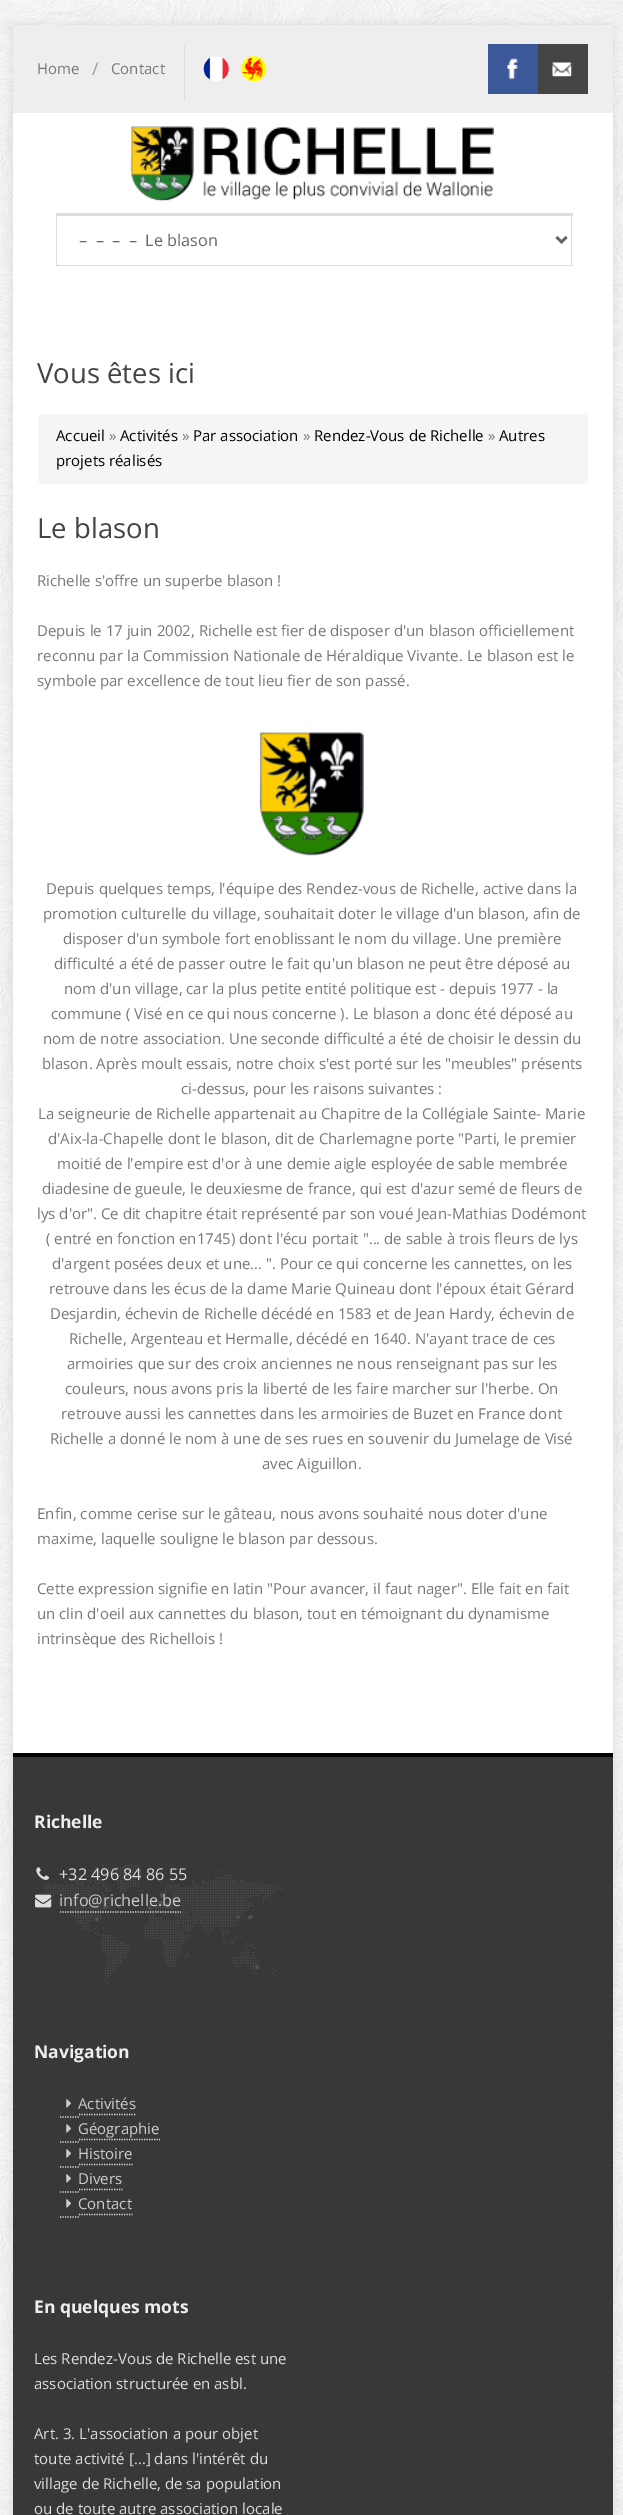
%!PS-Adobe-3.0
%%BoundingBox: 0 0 623 2515
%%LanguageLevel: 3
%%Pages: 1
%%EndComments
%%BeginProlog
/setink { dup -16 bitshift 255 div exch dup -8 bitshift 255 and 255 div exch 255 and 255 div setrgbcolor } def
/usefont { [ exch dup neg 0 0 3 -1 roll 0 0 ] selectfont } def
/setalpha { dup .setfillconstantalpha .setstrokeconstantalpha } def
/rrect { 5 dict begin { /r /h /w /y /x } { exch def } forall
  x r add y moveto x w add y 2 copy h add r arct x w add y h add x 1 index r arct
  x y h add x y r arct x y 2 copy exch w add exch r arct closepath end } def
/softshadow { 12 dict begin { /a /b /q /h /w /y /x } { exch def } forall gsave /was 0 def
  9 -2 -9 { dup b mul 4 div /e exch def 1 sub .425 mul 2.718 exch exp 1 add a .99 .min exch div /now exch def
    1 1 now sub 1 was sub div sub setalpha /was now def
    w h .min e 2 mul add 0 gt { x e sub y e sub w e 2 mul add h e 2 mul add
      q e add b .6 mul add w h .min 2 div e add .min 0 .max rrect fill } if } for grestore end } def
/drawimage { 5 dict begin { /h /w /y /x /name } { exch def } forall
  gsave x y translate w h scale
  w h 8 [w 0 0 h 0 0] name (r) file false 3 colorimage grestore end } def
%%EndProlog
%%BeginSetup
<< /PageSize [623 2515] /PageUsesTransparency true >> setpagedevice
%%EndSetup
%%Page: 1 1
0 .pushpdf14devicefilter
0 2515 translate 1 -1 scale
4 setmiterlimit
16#FFFFFF setink
0 0 623 2515 rectfill
(img1.raw) 0 0 623 2515 drawimage
16#000000 setink
13 25 600 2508 0 6 0.1 softshadow
16#FFFFFF setink
13 113 600 1640 rectfill
16#EEEEEE setink
13 25 600 88 rectfill
/OpenSans-Regular 15 usefont
16#777777 setink
37 74 moveto (Home) show
/OpenSans-Regular 17.5 usefont
16#999999 setink
92 75 moveto (/) show
/OpenSans-Regular 15 usefont
16#777777 setink
111 74 moveto (Contact) show
16#E0E0E0 setink
184 44 1 57 rectfill
(img2.raw) 203 56 26 25 drawimage
(img3.raw) 241 56 26 26 drawimage
16#3B5998 setink
488 44 50 50 rectfill
(img4.raw) 507 58 11 21 drawimage
16#444444 setink
538 44 50 50 rectfill
(img5.raw) 552 62 20 15 drawimage
(img6.raw) 130 126 364 76 drawimage
[
    [56 213 517 3 16#DDDDDD]
    [571 213 1 53 16#DDDDDD]
    [56 265 517 1 16#DDDDDD]
    [56 213 1 53 16#DDDDDD]
] { aload pop setink rectfill } forall
16#666666 setink
2.5 setlinewidth
556.5 237 moveto 561.5 242 lineto 566.5 237 lineto stroke
/OpenSans-Regular 16.25 usefont
79 246 moveto (–  –  –  –  Le blason) show
/OpenSans-Regular 27.5 usefont
16#444444 setink
37 383 moveto (Vous êtes ici) show
16#F5F5F5 setink
38 414 550 70 5 rrect fill
/OpenSans-Regular 15 usefont
16#000000 setink
56 441 moveto (Accueil) show
16#777777 setink
109 441 moveto (») show
16#000000 setink
120 441 moveto (Activités) show
16#777777 setink
182 441 moveto (») show
16#000000 setink
193 441 moveto (Par association) show
16#777777 setink
303 441 moveto (») show
16#000000 setink
314 441 moveto (Rendez-Vous de Richelle) show
16#777777 setink
488 441 moveto (») show
16#000000 setink
499 441 moveto (Autres) show
56 466 moveto (projets réalisés) show
/OpenSans-Regular 27.5 usefont
16#444444 setink
37 538 moveto (Le blason) show
/OpenSans-Regular 15 usefont
16#777777 setink
[
    [(Richelle s'offre un superbe blason !) 37 586]
    [(Depuis le 17 juin 2002, Richelle est fier de disposer d'un blason officiellement) 37 636]
    [(reconnu par la Commission Nationale de Héraldique Vivante. Le blason est le) 37 661]
    [(symbole par excellence de tout lieu fier de son passé.) 37 686]
] { aload pop moveto show } forall
(img7.raw) 259 731 105 125 drawimage
[
    [(Depuis quelques temps, l'équipe des Rendez-vous de Richelle, active dans la) 46 894]
    [(promotion culturelle du village, souhaitait doter le village d'un blason, afin de) 43 919]
    [(disposer d'un symbole fort enoblissant le nom du village. Une première) 63 944]
    [(difficulté a été de passer outre le fait qu'un blason ne peut être déposé au) 54 969]
    [(nom d'un village, car la plus petite entité politique est - depuis 1977 - la) 64 994]
    [(commune \( Visé en ce qui nous concerne \). Le blason a donc été déposé au) 51 1019]
    [(nom de notre association. Une seconde difficulté a été de choisir le dessin du) 43 1044]
    [(blason. Après moult essais, notre choix s'est porté sur les "meubles" présents) 42 1069]
    [(ci-dessus, pour les raisons suivantes :) 181 1094]
    [(La seigneurie de Richelle appartenait au Chapitre de la Collégiale Sainte- Marie) 38 1119]
    [(d'Aix-la-Chapelle dont le blason, dit de Charlemagne porte "Parti, le premier) 48 1144]
    [(moitié de l'empire est d'or à une demie aigle esployée de sable membrée) 57 1169]
    [(diadesine de gueule, le deuxiesme de france, qui est d'azur semé de fleurs de) 42 1194]
    [(lys d'or". Ce dit chapitre était représenté par son voué Jean-Mathias Dodémont) 37 1219]
    [(\( entré en fonction en1745\) dont l'écu portait "... de sable à trois fleurs de lys) 46 1244]
    [(d'argent posées deux et une... ". Pour ce qui concerne les cannettes, on les) 52 1269]
    [(retrouve dans les écus de la dame Marie Quineau dont l'époux était Gérard) 49 1294]
    [(Desjardin, échevin de Richelle décédé en 1583 et de Jean Hardy, échevin de) 50 1319]
    [(Richelle, Argenteau et Hermalle, décédé en 1640. N'ayant trace de ces) 69 1344]
    [(armoiries que sur des croix anciennes ne nous renseignant pas sur les) 67 1369]
    [(couleurs, nous avons pris la liberté de les faire marcher sur l'herbe. On) 65 1394]
    [(retrouve aussi les cannettes dans les armoiries de Buzet en France dont) 61 1419]
    [(Richelle a donné le nom à une de ses rues en souvenir du Jumelage de Visé) 50 1444]
    [(avec Aiguillon.) 262 1469]
    [(Enfin, comme cerise sur le gâteau, nous avons souhaité nous doter d'une) 37 1519]
    [(maxime, laquelle souligne le blason par dessous.) 37 1544]
    [(Cette expression signifie en latin "Pour avancer, il faut nager". Elle fait en fait) 37 1594]
    [(un clin d'oeil aux cannettes du blason, tout en témoignant du dynamisme) 37 1619]
    [(intrinsèque des Richellois !) 37 1644]
] { aload pop moveto show } forall
16#363839 setink
13 1757 600 758 rectfill
16#000000 setink
13 1753 600 4 rectfill
/OpenSans-Bold 17.5 usefont
16#EEEEEE setink
34 1828 moveto (Richelle) show
(img8.raw) 42 1865 242 119 drawimage
(img9.raw) 36 1867 13 13 drawimage
/OpenSans-Regular 16.25 usefont
16#DDDDDD setink
59 1880 moveto (+32 496 84 86 55) show
(img10.raw) 35 1894 17 14 drawimage
16#CCCCCC setink
59 1906 moveto (info@richelle.be) show
16#DDDDDD setink
1.2 setlinewidth
[1.25 1.25] 0 setdash
60 1912 moveto 181 1912 lineto stroke
/OpenSans-Bold 17.5 usefont
16#EEEEEE setink
34 2058 moveto (Navigation) show
16#DDDDDD setink
60 2117 moveto 79 2117 lineto stroke
79 2114.5 moveto 136 2114.5 lineto stroke
(img11.raw) 66 2099 5 9 drawimage
/OpenSans-Regular 15 usefont
16#CCCCCC setink
78 2109 moveto (Activités) show
16#DDDDDD setink
60 2142 moveto 79 2142 lineto stroke
79 2139.5 moveto 160 2139.5 lineto stroke
(img11.raw) 66 2124 5 9 drawimage
16#CCCCCC setink
78 2134 moveto (Géographie) show
16#DDDDDD setink
60 2167 moveto 79 2167 lineto stroke
79 2164.5 moveto 132.5 2164.5 lineto stroke
(img11.raw) 66 2149 5 9 drawimage
16#CCCCCC setink
78 2159 moveto (Histoire) show
16#DDDDDD setink
60 2192 moveto 79 2192 lineto 79 2189.5 moveto 122.5 2189.5 lineto stroke
(img11.raw) 66 2174 5 9 drawimage
16#CCCCCC setink
78 2184 moveto (Divers) show
16#DDDDDD setink
60 2217 moveto 79 2217 lineto stroke
79 2214.5 moveto 132.5 2214.5 lineto stroke
(img11.raw) 66 2199 5 9 drawimage
16#CCCCCC setink
78 2209 moveto (Contact) show
/OpenSans-Bold 17.5 usefont
16#EEEEEE setink
34 2313 moveto (En quelques mots) show
/OpenSans-Regular 15 usefont
16#DDDDDD setink
[
    [(Les Rendez-Vous de Richelle est une) 34 2364]
    [(association structurée en asbl.) 34 2389]
    [(Art. 3. L'association a pour objet) 34 2439]
    [(toute activité [...] dans l'intérêt du) 34 2464]
    [(village de Richelle, de sa population) 34 2489]
    [(ou de toute autre association locale) 34 2514]
] { aload pop moveto show } forall
.poppdf14devicefilter showpage
%%EOF
